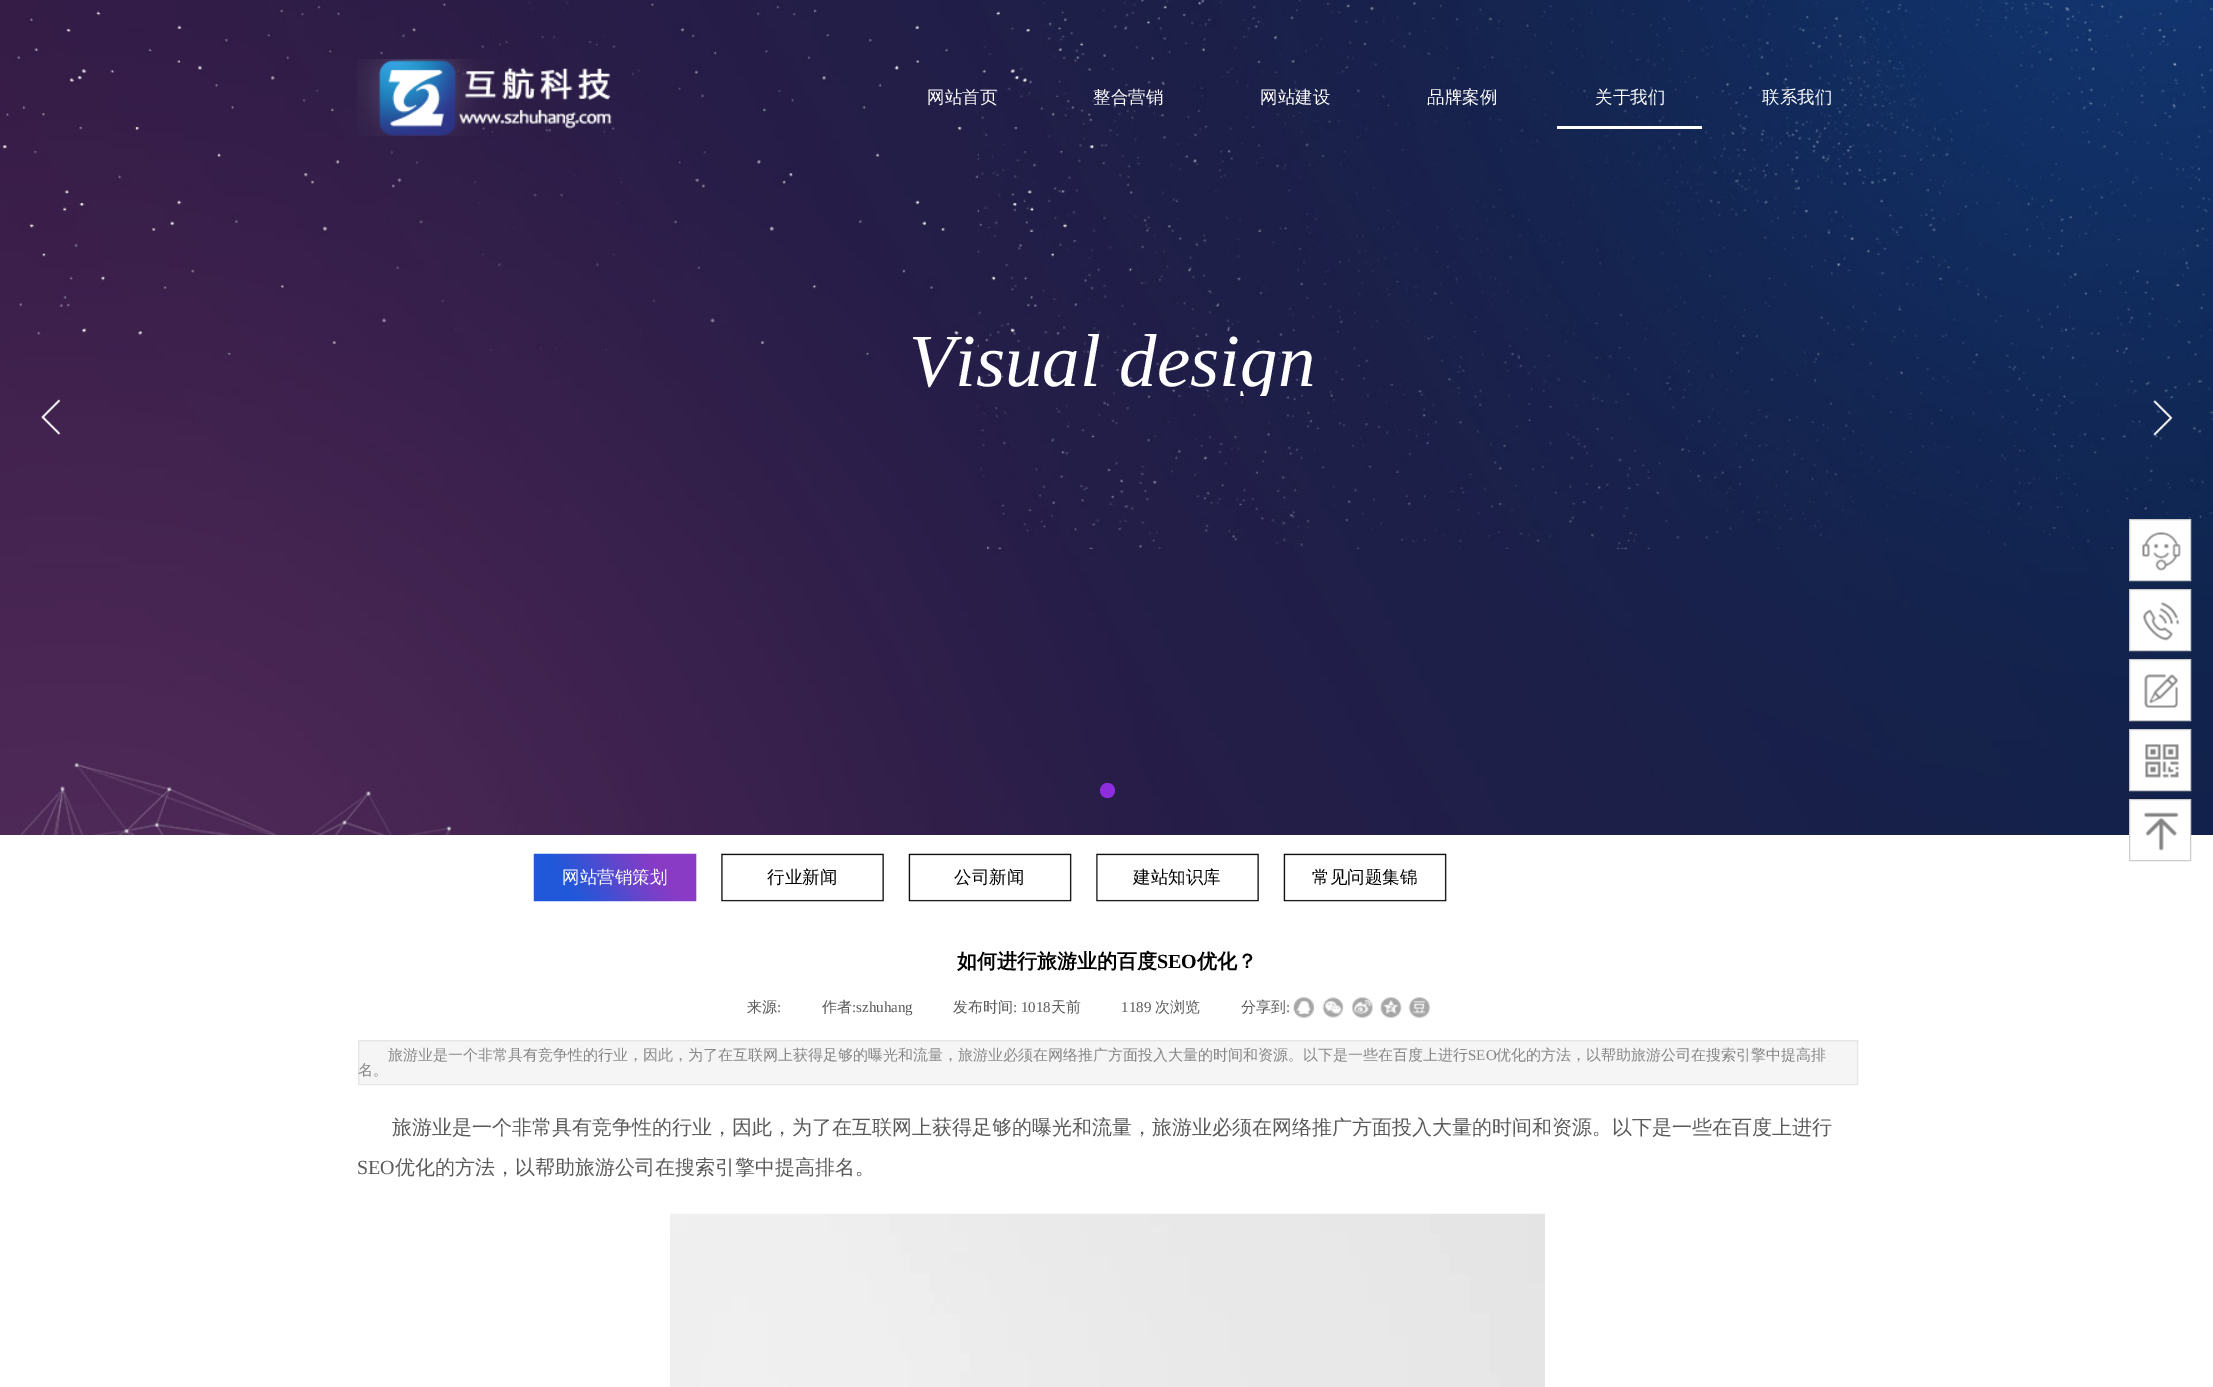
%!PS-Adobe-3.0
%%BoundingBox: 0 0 2213 1387
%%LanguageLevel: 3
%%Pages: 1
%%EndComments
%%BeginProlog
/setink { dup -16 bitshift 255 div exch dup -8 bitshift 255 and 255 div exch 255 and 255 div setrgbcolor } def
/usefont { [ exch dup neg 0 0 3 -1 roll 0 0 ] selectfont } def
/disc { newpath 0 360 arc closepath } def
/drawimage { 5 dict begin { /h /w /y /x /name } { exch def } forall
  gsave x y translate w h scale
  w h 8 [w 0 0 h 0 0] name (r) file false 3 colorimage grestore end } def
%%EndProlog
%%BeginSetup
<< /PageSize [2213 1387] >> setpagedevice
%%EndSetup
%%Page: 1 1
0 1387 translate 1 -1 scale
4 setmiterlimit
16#FFFFFF setink
0 0 2213 1387 rectfill
(img1.raw) 0 0 2213 835 drawimage
(img2.raw) 41 399 20 36 drawimage
(img3.raw) 2153 400 20 36 drawimage
16#8D2DDD setink
1107.5 790.5 7.5 disc fill
(img4.raw) 357 59 255 77 drawimage
/WenQuanYiZenHei-Medium 17.5 usefont
16#FFFFFF setink
[
    [(网站首页) 927 103]
    [(整合营销) 1093 103]
    [(网站建设) 1260 103]
    [(品牌案例) 1427 103]
] { aload pop moveto show } forall
1557 126 145 3 rectfill
1595 103 moveto (关于我们) show
1762 103 moveto (联系我们) show
gsave
390 308 1445 88 rectclip
/LiberationSerif-Italic 75 usefont
909 386 moveto (Visual design) show
grestore
(img5.raw) 533 853 164 49 drawimage
562 883 moveto (网站营销策划) show
(img6.raw) 721 853 163 49 drawimage
16#000000 setink
767 883 moveto (行业新闻) show
(img7.raw) 908 853 164 49 drawimage
954 883 moveto (公司新闻) show
(img8.raw) 1096 853 163 49 drawimage
1133 883 moveto (建站知识库) show
(img7.raw) 1283 853 164 49 drawimage
1312 883 moveto (常见问题集锦) show
/WenQuanYiZenHei-Bold 20 usefont
957 968 moveto (如何进行旅游业的百度) show
/LiberationSerif-Bold 20 usefont
1157 968 moveto (SEO) show
/WenQuanYiZenHei-Bold 20 usefont
1197 968 moveto (优化？) show
/WenQuanYiZenHei-Medium 15 usefont
16#5A5A5A setink
747 1012 moveto (来源) show
/LiberationSerif-Regular 15 usefont
777 1012 moveto (:) show
/WenQuanYiZenHei-Medium 15 usefont
822 1012 moveto (作者) show
/LiberationSerif-Regular 15 usefont
852 1012 moveto (:szhuhang) show
/WenQuanYiZenHei-Medium 15 usefont
953 1012 moveto (发布时间) show
/LiberationSerif-Regular 15 usefont
1013 1012 moveto (: 1018) show
/WenQuanYiZenHei-Medium 15 usefont
1051 1012 moveto (天前) show
/LiberationSerif-Regular 15 usefont
1121 1012 moveto (1189) show
/WenQuanYiZenHei-Medium 15 usefont
1155 1012 moveto (次浏览) show
1241 1012 moveto (分享到) show
/LiberationSerif-Regular 15 usefont
1286 1012 moveto (:) show
(img9.raw) 1293 997 22 21 drawimage
(img10.raw) 1322 997 22 21 drawimage
(img11.raw) 1351 997 22 21 drawimage
(img12.raw) 1380 997 22 21 drawimage
(img13.raw) 1408 997 22 21 drawimage
16#F5F5F5 setink
358.5 1040.5 moveto 1857.5 1040.5 lineto 1857.5 1084.5 lineto 358.5 1084.5 lineto closepath gsave fill grestore
16#E5E5E5 setink
stroke
/WenQuanYiZenHei-Medium 15 usefont
16#868686 setink
388 1060 moveto (旅游业是一个非常具有竞争性的行业，因此，为了在互联网上获得足够的曝光和流量，旅游业必须在网络推广方面投入大量的时间和资源。以下是一些在百度上进行) show
/LiberationSerif-Regular 15 usefont
1468 1060 moveto (SEO) show
/WenQuanYiZenHei-Medium 15 usefont
1496 1060 moveto (优化的方法，以帮助旅游公司在搜索引擎中提高排) show
358 1075 moveto (名。) show
/WenQuanYiZenHei-Medium 20 usefont
16#5A5A5A setink
392 1134 moveto (旅游业是一个非常具有竞争性的行业，因此，为了在互联网上获得足够的曝光和流量，旅游业必须在网络推广方面投入大量的时间和资源。以下是一些在百度上进行) show
/LiberationSerif-Regular 20 usefont
357 1174 moveto (SEO) show
/WenQuanYiZenHei-Medium 20 usefont
395 1174 moveto (优化的方法，以帮助旅游公司在搜索引擎中提高排名。) show
(img14.raw) 670 1213 875 174 drawimage
16#FFFFFF setink
2129.5 519.5 moveto 2190.5 519.5 lineto 2190.5 580.5 lineto 2129.5 580.5 lineto closepath gsave fill grestore
16#CCCCCC setink
stroke
(img15.raw) 2142 532 39 39 drawimage
16#FFFFFF setink
2129.5 589.5 moveto 2190.5 589.5 lineto 2190.5 650.5 lineto 2129.5 650.5 lineto closepath gsave fill grestore
16#CCCCCC setink
stroke
(img16.raw) 2143 602 37 39 drawimage
16#FFFFFF setink
2129.5 659.5 moveto 2190.5 659.5 lineto 2190.5 720.5 lineto 2129.5 720.5 lineto closepath gsave fill grestore
16#CCCCCC setink
stroke
(img17.raw) 2144 674 34 34 drawimage
16#FFFFFF setink
2129.5 729.5 moveto 2190.5 729.5 lineto 2190.5 790.5 lineto 2129.5 790.5 lineto closepath gsave fill grestore
16#CCCCCC setink
stroke
(img18.raw) 2145 744 34 34 drawimage
16#FFFFFF setink
2130 800 60 35 rectfill
16#CCCCCC setink
2129.5 799.5 61 61 rectstroke
(img19.raw) 2144 812 35 39 drawimage
showpage
%%EOF
